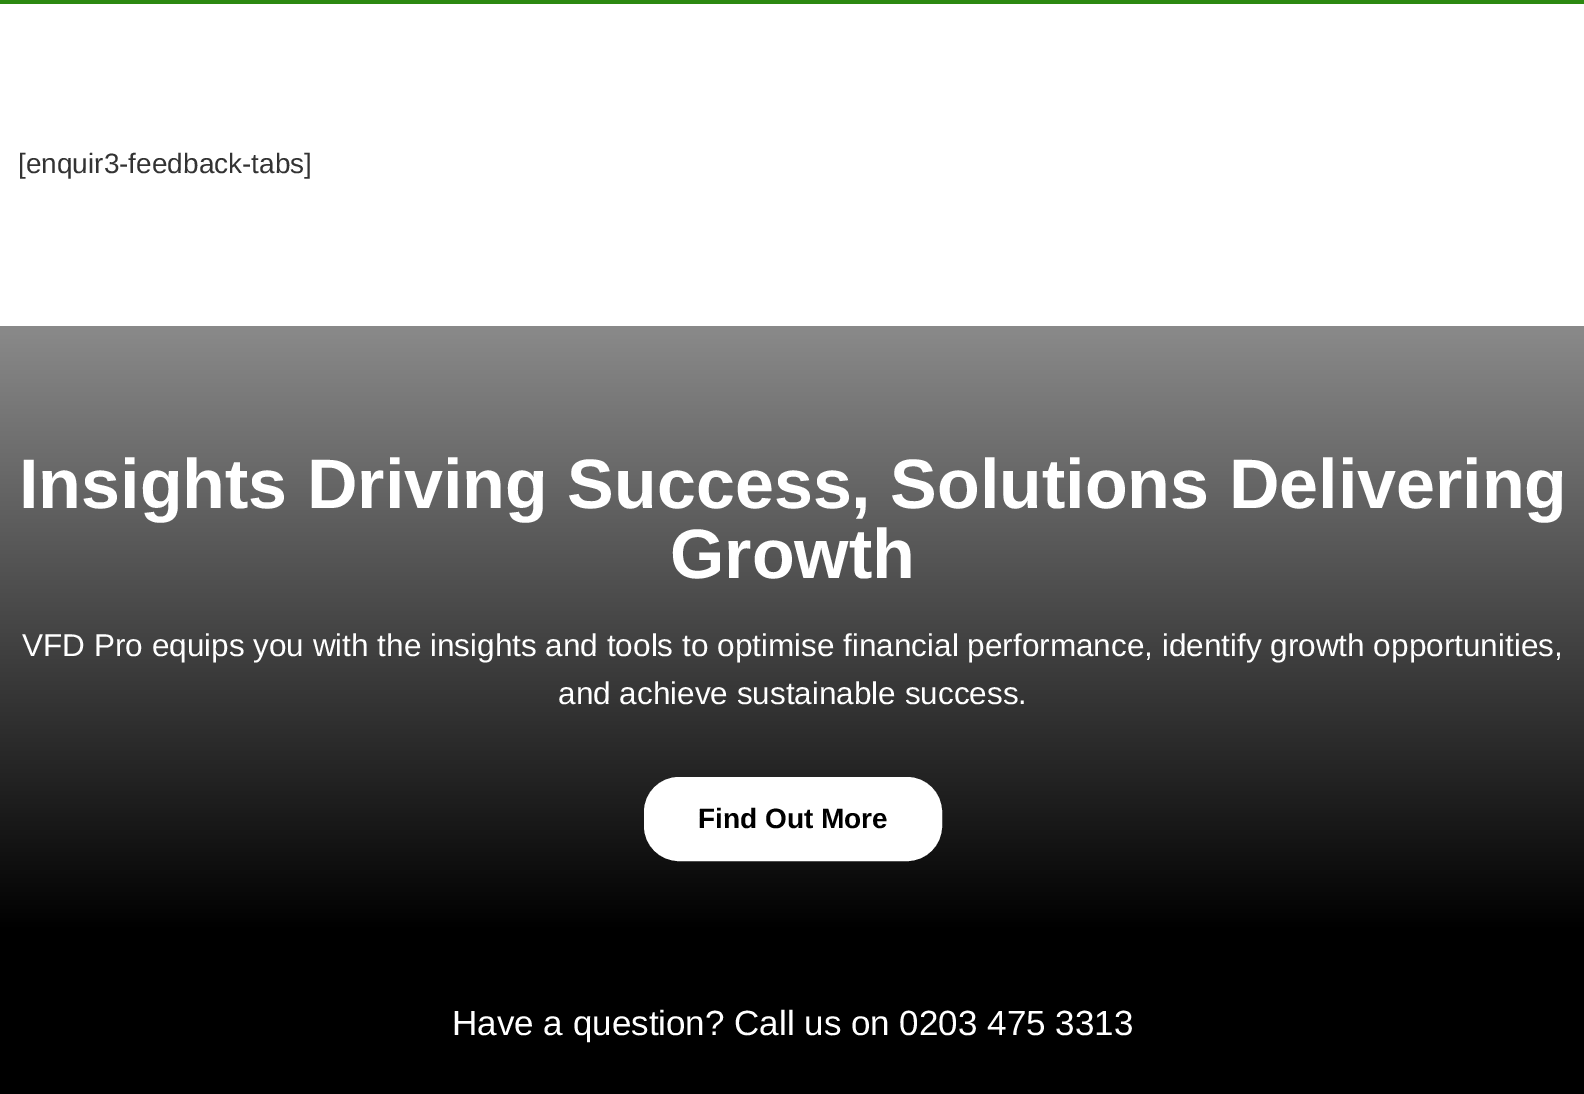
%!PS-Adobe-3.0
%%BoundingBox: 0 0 1584 1094
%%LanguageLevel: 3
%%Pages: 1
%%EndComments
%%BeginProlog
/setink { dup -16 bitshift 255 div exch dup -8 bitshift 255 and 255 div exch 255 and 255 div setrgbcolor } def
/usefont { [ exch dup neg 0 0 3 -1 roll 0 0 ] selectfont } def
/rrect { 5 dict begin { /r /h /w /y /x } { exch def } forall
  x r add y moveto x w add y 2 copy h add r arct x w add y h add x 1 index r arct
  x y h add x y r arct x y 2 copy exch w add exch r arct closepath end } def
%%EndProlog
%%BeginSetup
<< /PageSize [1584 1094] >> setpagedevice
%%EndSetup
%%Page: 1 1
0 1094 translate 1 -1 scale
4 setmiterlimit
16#FFFFFF setink
0 0 1584 1094 rectfill
gsave 0 0 moveto 1584 0 lineto 1584 4 lineto 0 4 lineto closepath clip newpath
<< /ShadingType 2 /ColorSpace /DeviceRGB /Coords [793 -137 793 3.5] /Extend [true true] /Function << /FunctionType 2 /Domain [0 1] /C0 [0.337 0.686 0.192] /C1 [0.173 0.537 0.067] /N 1 >> >> shfill grestore
/LiberationSans-Regular 28 usefont
16#333333 setink
18 173 moveto ([enquir3-feedback-tabs]) show
gsave 0 326 moveto 1584 326 lineto 1584 931 lineto 0 931 lineto closepath clip newpath
<< /ShadingType 2 /ColorSpace /DeviceRGB /Coords [793 325 793 931] /Extend [true true] /Function << /FunctionType 2 /Domain [0 1] /C0 [0.541 0.541 0.541] /C1 [0 0 0] /N 1 >> >> shfill grestore
/LiberationSans-Bold 70 usefont
16#FFFFFF setink
19 508 moveto (Insights Driving Success, Solutions Delivering) show
670 578 moveto (Growth) show
/LiberationSans-Regular 31.5 usefont
22 656 moveto (VFD Pro equips you with the insights and tools to optimise financial performance, identify growth opportunities,) show
558 704 moveto (and achieve sustainable success.) show
645 778 296 82 34 rrect gsave fill grestore
2 setlinewidth
stroke
/LiberationSans-Bold 28 usefont
16#000000 setink
698 828 moveto (Find Out More) show
0 931 1584 163 rectfill
/LiberationSans-Regular 35 usefont
16#FFFFFF setink
452 1035 moveto (Have a question? Call us on 0203 475 3313) show
showpage
%%EOF
